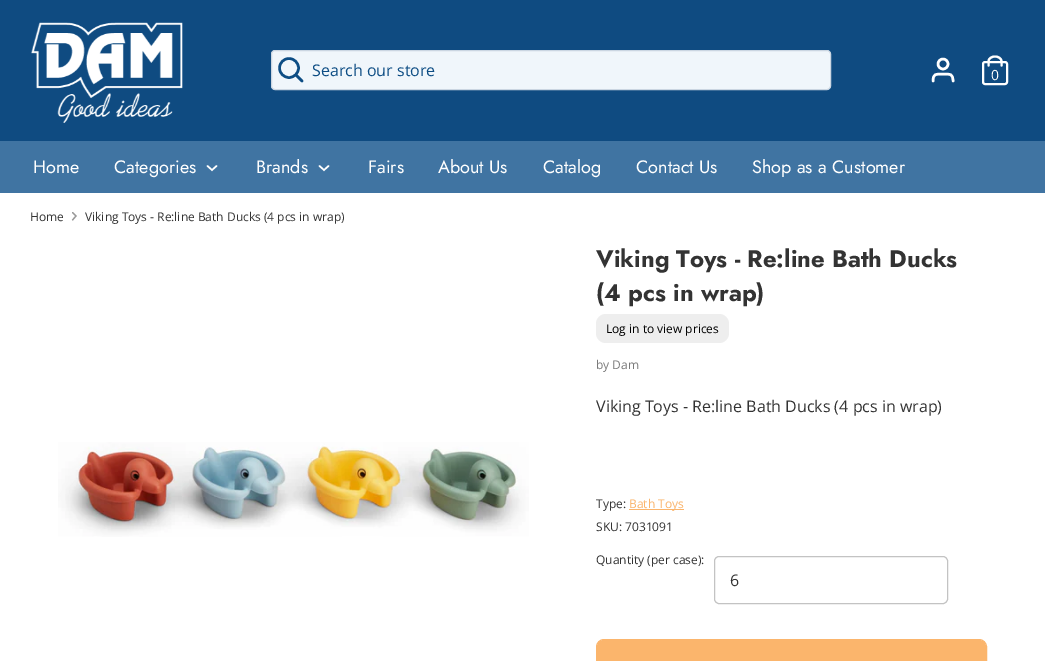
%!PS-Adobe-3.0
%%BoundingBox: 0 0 1045 661
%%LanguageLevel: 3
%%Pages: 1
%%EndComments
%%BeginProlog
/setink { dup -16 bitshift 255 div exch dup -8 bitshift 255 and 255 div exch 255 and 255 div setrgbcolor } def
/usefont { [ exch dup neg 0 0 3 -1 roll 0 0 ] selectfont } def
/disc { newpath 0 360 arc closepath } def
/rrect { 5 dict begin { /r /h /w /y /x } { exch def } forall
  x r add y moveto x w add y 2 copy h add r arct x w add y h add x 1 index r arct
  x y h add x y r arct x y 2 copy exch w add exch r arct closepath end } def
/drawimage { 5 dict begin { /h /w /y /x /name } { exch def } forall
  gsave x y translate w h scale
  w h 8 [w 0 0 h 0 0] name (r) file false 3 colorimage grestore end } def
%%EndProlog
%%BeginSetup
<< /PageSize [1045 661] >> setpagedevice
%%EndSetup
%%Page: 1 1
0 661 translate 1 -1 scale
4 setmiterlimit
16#FFFFFF setink
0 0 1045 661 rectfill
16#0F4B81 setink
0 0 1045 141 rectfill
(img1.raw) 31 22 152 101 drawimage
16#F0F6FB setink
271.5 50.5 559 39 3.5 rrect gsave fill grestore
16#CBD6E2 setink
stroke
16#0D4D84 setink
2.5 setlinewidth
289 68 9.5 disc stroke
1 setlinecap
302 81 moveto 296 75 lineto stroke
/OpenSans-Regular 16 usefont
312 76 moveto (Search our store) show
16#FFFFFF setink
953 81 moveto 953 73.5 950 74 943 74 curveto 936 74 933 73.5 933 81 curveto stroke
0 setlinecap
943 64 5 disc stroke
2 setlinewidth
983 62 24 22 2 rrect stroke
2.1 setlinewidth
1 setlinecap
988.5 65.5 moveto 988.5 61.5 lineto 988.5 58.5 991.5 56.5 995 56.5 curveto 998.5 56.5 1001.5 58.5 1001.5 61.5 curveto 1001.5 65.5 lineto stroke
/OpenSans-Regular 14 usefont
991 80 moveto (0) show
16#4074A2 setink
0 141 1045 52 rectfill
/Jost-Regular 18 usefont
16#FFFFFF setink
33 173 moveto (Home) show
114 173 moveto (Categories) show
1.5 setlinewidth
207.5 166 moveto 212 170 lineto 216.5 166 lineto stroke
256 173 moveto (Brands) show
319.5 166 moveto 324 170 lineto 328.5 166 lineto stroke
[
    [(Fairs) 368 173]
    [(About Us) 438 173]
    [(Catalog) 543 173]
    [(Contact Us) 636 173]
    [(Shop as a Customer) 752 173]
] { aload pop moveto show } forall
/OpenSans-Regular 12 usefont
16#333333 setink
30 221 moveto (Home) show
16#999999 setink
1.2 setlinewidth
72.5 220 moveto 76 216 lineto 72.5 212.5 lineto stroke
16#333333 setink
85 221 moveto (Viking Toys - Re:line Bath Ducks \(4 pcs in wrap\)) show
(img2.raw) 58 442 471 95 drawimage
/Jost-Bold 24 usefont
596 267 moveto (Viking Toys - Re:line Bath Ducks) show
596 301 moveto (\(4 pcs in wrap\)) show
16#EEEEEE setink
596 314 133 29 10 rrect fill
/OpenSans-Regular 12 usefont
16#000000 setink
606 333 moveto (Log in to view prices) show
16#797979 setink
596 369 moveto (by Dam) show
/OpenSans-Regular 16 usefont
16#333333 setink
596 412 moveto (Viking Toys - Re:line Bath Ducks \(4 pcs in wrap\)) show
/OpenSans-Regular 12 usefont
596 508 moveto (Type:) show
16#FBB56C setink
629 509 55 1 rectfill
629 508 moveto (Bath Toys) show
16#333333 setink
596 531 moveto (SKU: 7031091) show
596 564 moveto (Quantity \(per case\):) show
16#C3C3C3 setink
1 setlinewidth
0 setlinecap
714.5 556.5 233 47 4.5 rrect stroke
/OpenSans-Regular 16 usefont
16#333333 setink
730 586 moveto (6) show
16#FBB56C setink
596.5 639.5 390 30 7.5 rrect stroke
597 640 389 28 7 rrect fill
showpage
%%EOF
